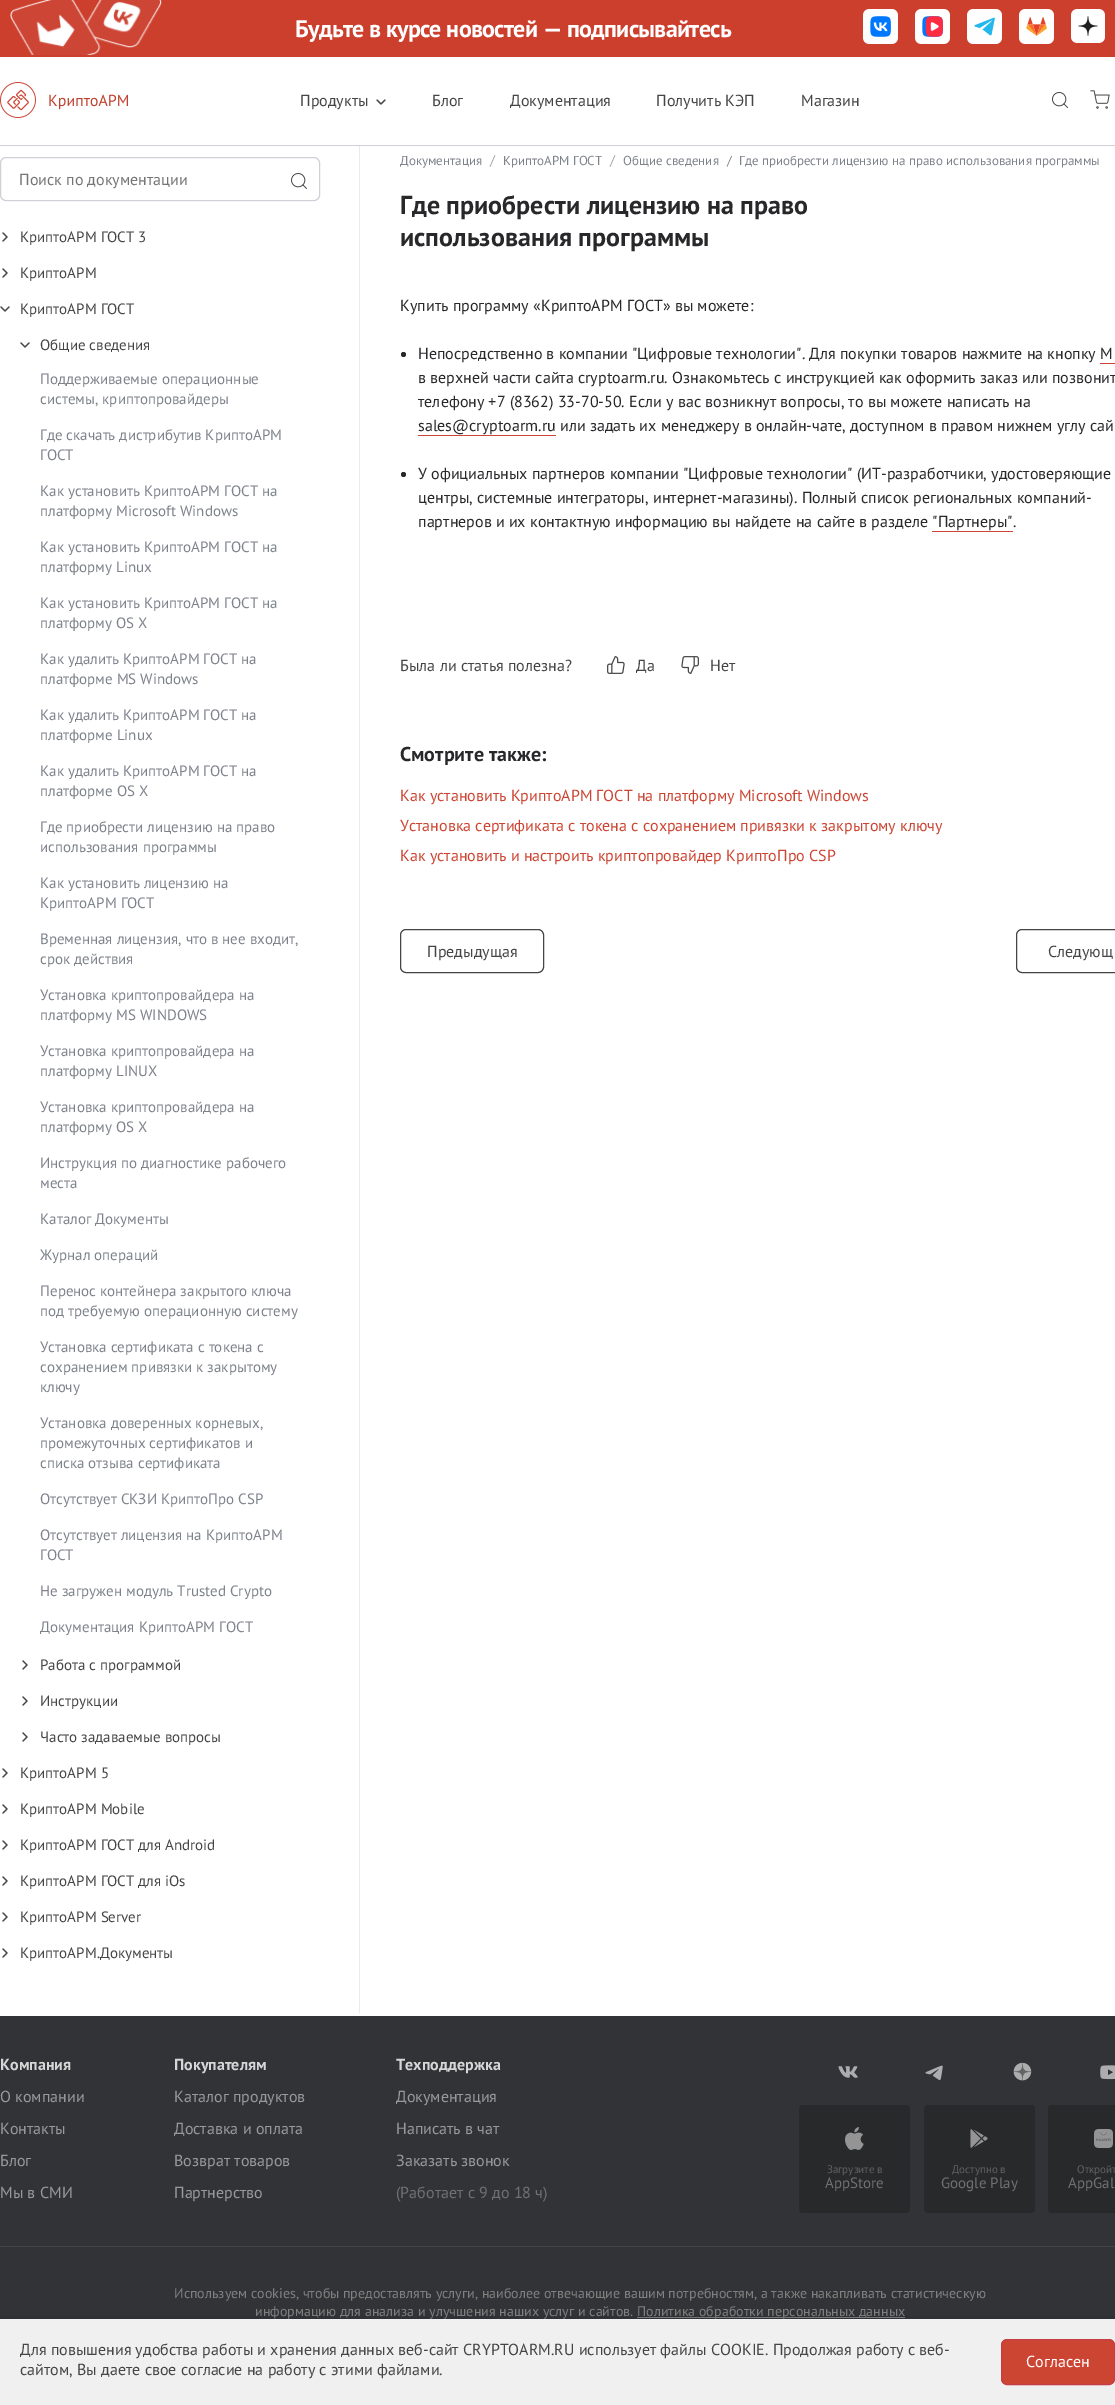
%!PS-Adobe-3.0
%%BoundingBox: 0 0 1115 2405
%%LanguageLevel: 3
%%Pages: 1
%%EndComments
%%BeginProlog
/setink { dup -16 bitshift 255 div exch dup -8 bitshift 255 and 255 div exch 255 and 255 div setrgbcolor } def
/usefont { [ exch dup neg 0 0 3 -1 roll 0 0 ] selectfont } def
/setalpha { dup .setfillconstantalpha .setstrokeconstantalpha } def
/disc { newpath 0 360 arc closepath } def
/rrect { 5 dict begin { /r /h /w /y /x } { exch def } forall
  x r add y moveto x w add y 2 copy h add r arct x w add y h add x 1 index r arct
  x y h add x y r arct x y 2 copy exch w add exch r arct closepath end } def
/softshadow { 12 dict begin { /a /b /q /h /w /y /x } { exch def } forall gsave /was 0 def
  9 -2 -9 { dup b mul 4 div /e exch def 1 sub .425 mul 2.718 exch exp 1 add a .99 .min exch div /now exch def
    1 1 now sub 1 was sub div sub setalpha /was now def
    w h .min e 2 mul add 0 gt { x e sub y e sub w e 2 mul add h e 2 mul add
      q e add b .6 mul add w h .min 2 div e add .min 0 .max rrect fill } if } for grestore end } def
/drawimage { 5 dict begin { /h /w /y /x /name } { exch def } forall
  gsave x y translate w h scale
  w h 8 [w 0 0 h 0 0] name (r) file false 3 colorimage grestore end } def
%%EndProlog
%%BeginSetup
<< /PageSize [1115 2405] /PageUsesTransparency true >> setpagedevice
%%EndSetup
%%Page: 1 1
0 .pushpdf14devicefilter
0 2405 translate 1 -1 scale
4 setmiterlimit
16#FFFFFF setink
0 0 1115 2405 rectfill
16#CFD1D6 setink
0 145 1115 1 rectfill
16#CC3F2D setink
0 0 1115 57 rectfill
(img1.raw) 10 0 152 55 drawimage
/PTSans-Bold 24 usefont
16#FFFFFF setink
295 37 moveto -0.7 0 (Будьте в курсе новостей — подписывайтесь) ashow
(img2.raw) 863 9 35 35 drawimage
(img3.raw) 915 9 35 35 drawimage
(img4.raw) 967 9 35 35 drawimage
(img5.raw) 1019 9 35 35 drawimage
(img6.raw) 1071 9 34 34 drawimage
(img7.raw) 0 82 128 36 drawimage
/PTSans-Regular 16 usefont
16#454547 setink
300 106 moveto (Продукты) show
1.2 setlinewidth
1 setlinecap
1 setlinejoin
377 100 moveto 381 104 lineto 385 100 lineto stroke
[
    [(Блог) 432 106]
    [(Документация) 510 106]
    [(Получить КЭП) 656 106]
    [(Магазин) 801 106]
] { aload pop moveto show } forall
(img8.raw) 1052 92 16 16 drawimage
(img9.raw) 1090 90 20 19 drawimage
16#CFD1D6 setink
1 setlinewidth
0 setlinecap
0 setlinejoin
0.5 157.5 319 43 5.5 rrect stroke
16#757575 setink
19 185 moveto (Поиск по документации) show
(img8.raw) 291 173 16 16 drawimage
(img10.raw) 2 232 6 10 drawimage
/PTSans-Regular 15 usefont
16#454547 setink
20 242 moveto (КриптоАРМ ГОСТ 3) show
(img10.raw) 2 268 6 10 drawimage
20 278 moveto (КриптоАРМ) show
(img11.raw) 0 306 10 6 drawimage
20 314 moveto (КриптоАРМ ГОСТ) show
(img11.raw) 20 342 10 6 drawimage
40 350 moveto (Общие сведения) show
16#7E828B setink
[
    [(Поддерживаемые операционные) 40 384]
    [(системы, криптопровайдеры) 40 404]
    [(Где скачать дистрибутив КриптоАРМ) 40 440]
    [(ГОСТ) 40 460]
    [(Как установить КриптоАРМ ГОСТ на) 40 496]
    [(платформу Microsoft Windows) 40 516]
    [(Как установить КриптоАРМ ГОСТ на) 40 552]
    [(платформу Linux) 40 572]
    [(Как установить КриптоАРМ ГОСТ на) 40 608]
    [(платформу OS X) 40 628]
    [(Как удалить КриптоАРМ ГОСТ на) 40 664]
    [(платформе MS Windows) 40 684]
    [(Как удалить КриптоАРМ ГОСТ на) 40 720]
    [(платформе Linux) 40 740]
    [(Как удалить КриптоАРМ ГОСТ на) 40 776]
    [(платформе OS X) 40 796]
    [(Где приобрести лицензию на право) 40 832]
    [(использования программы) 40 852]
    [(Как установить лицензию на) 40 888]
    [(КриптоАРМ ГОСТ) 40 908]
    [(Временная лицензия, что в нее входит,) 40 944]
    [(срок действия) 40 964]
    [(Установка криптопровайдера на) 40 1000]
    [(платформу MS WINDOWS) 40 1020]
    [(Установка криптопровайдера на) 40 1056]
    [(платформу LINUX) 40 1076]
    [(Установка криптопровайдера на) 40 1112]
    [(платформу OS X) 40 1132]
    [(Инструкция по диагностике рабочего) 40 1168]
    [(места) 40 1188]
    [(Каталог Документы) 40 1224]
    [(Журнал операций) 40 1260]
    [(Перенос контейнера закрытого ключа) 40 1296]
    [(под требуемую операционную систему) 40 1316]
    [(Установка сертификата с токена с) 40 1352]
    [(сохранением привязки к закрытому) 40 1372]
    [(ключу) 40 1392]
    [(Установка доверенных корневых,) 40 1428]
    [(промежуточных сертификатов и) 40 1448]
    [(списка отзыва сертификата) 40 1468]
    [(Отсутствует СКЗИ КриптоПро CSP) 40 1504]
    [(Отсутствует лицензия на КриптоАРМ) 40 1540]
    [(ГОСТ) 40 1560]
    [(Не загружен модуль Trusted Crypto) 40 1596]
    [(Документация КриптоАРМ ГОСТ) 40 1632]
] { aload pop moveto show } forall
(img10.raw) 22 1660 6 10 drawimage
16#454547 setink
40 1670 moveto (Работа с программой) show
(img10.raw) 22 1696 6 10 drawimage
40 1706 moveto (Инструкции) show
(img10.raw) 22 1732 6 10 drawimage
40 1742 moveto (Часто задаваемые вопросы) show
(img10.raw) 2 1768 6 10 drawimage
20 1778 moveto (КриптоАРМ 5) show
(img10.raw) 2 1804 6 10 drawimage
20 1814 moveto (КриптоАРМ Mobile) show
(img10.raw) 2 1840 6 10 drawimage
20 1850 moveto (КриптоАРМ ГОСТ для Android) show
(img10.raw) 2 1876 6 10 drawimage
20 1886 moveto (КриптоАРМ ГОСТ для iOs) show
(img10.raw) 2 1912 6 10 drawimage
20 1922 moveto (КриптоАРМ Server) show
(img10.raw) 2 1948 6 10 drawimage
20 1958 moveto (КриптоАРМ.Документы) show
16#EAEAEA setink
359 146 1 1867 rectfill
/PTSans-Regular 13 usefont
16#7E828B setink
400 165 moveto (Документация) show
/PTSans-Regular 14 usefont
16#A4A4A4 setink
490 165 moveto (/) show
/PTSans-Regular 13 usefont
16#7E828B setink
503 165 moveto (КриптоАРМ ГОСТ) show
/PTSans-Regular 14 usefont
16#A4A4A4 setink
610 165 moveto (/) show
/PTSans-Regular 13 usefont
16#7E828B setink
[
    [(Общие сведения) 623 165]
    [(/) 727 165]
    [(Где приобрести лицензию на право использования программы) 739 165]
] { aload pop moveto show } forall
/PTSans-Bold 26 usefont
16#28282A setink
400 214 moveto (Где приобрести лицензию на право) show
400 246 moveto (использования программы) show
/PTSans-Regular 16 usefont
400 311 moveto (Купить программу «КриптоАРМ ГОСТ» вы можете:) show
403.5 354.5 2.5 disc fill
418 359 moveto (Непосредственно в компании "Цифровые технологии". Для покупки товаров нажмите на кнопку М) show
16#CC4533 setink
1100 363 15 1 rectfill
16#28282A setink
[
    [(в верхней части сайта cryptoarm.ru. Ознакомьтесь с инструкцией как оформить заказ или позвонит) 418 383]
    [(телефону +7 \(8362\) 33-70-50. Если у вас возникнут вопросы, то вы можете написать на) 418 407]
    [(sales@cryptoarm.ru) 418 431]
] { aload pop moveto show } forall
16#CC4533 setink
418 435 138 1 rectfill
16#28282A setink
560 431 moveto (или задать их менеджеру в онлайн-чате, доступном в правом нижнем углу сай) show
403.5 474.5 2.5 disc fill
[
    [(У официальных партнеров компании "Цифровые технологии" \(ИТ-разработчики, удостоверяющие) 418 479]
    [(центры, системные интеграторы, интернет-магазины\). Полный список региональных компаний-) 418 503]
    [(партнеров и их контактную информацию вы найдете на сайте в разделе "Партнеры") 418 527]
    [(.) 1013 527]
] { aload pop moveto show } forall
16#CC4533 setink
932 531 81 1 rectfill
16#454547 setink
400 671 moveto (Была ли статья полезна?) show
(img12.raw) 607 656 18 18 drawimage
636 671 moveto (Да) show
(img13.raw) 681 656 18 18 drawimage
710 671 moveto (Нет) show
/PTSans-Bold 20 usefont
16#28282A setink
400 761 moveto (Смотрите также:) show
/PTSans-Regular 16 usefont
16#CC4533 setink
[
    [(Как установить КриптоАРМ ГОСТ на платформу Microsoft Windows) 400 801]
    [(Установка сертификата с токена с сохранением привязки к закрытому ключу) 400 831]
    [(Как установить и настроить криптопровайдер КриптоПро CSP) 400 861]
] { aload pop moveto show } forall
16#454547 setink
400.5 929.5 143 43 5.5 rrect stroke
427 957 moveto (Предыдущая) show
1016.5 929.5 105 43 5.5 rrect stroke
1048 957 moveto (Следующ) show
16#313336 setink
0 2016 1115 303 rectfill
16#454547 setink
0 2246 1115 1 rectfill
/PTSans-Bold 16 usefont
16#D6D6D6 setink
0 2070 moveto (Компания) show
/PTSans-Regular 16 usefont
16#98999B setink
[
    [(О компании) 0 2102]
    [(Контакты) 0 2134]
    [(Блог) 0 2166]
    [(Мы в СМИ) 0 2198]
] { aload pop moveto show } forall
/PTSans-Bold 16 usefont
16#D6D6D6 setink
174 2070 moveto (Покупателям) show
/PTSans-Regular 16 usefont
16#98999B setink
[
    [(Каталог продуктов) 174 2102]
    [(Доставка и оплата) 174 2134]
    [(Возврат товаров) 174 2166]
    [(Партнерство) 174 2198]
] { aload pop moveto show } forall
/PTSans-Bold 16 usefont
16#D6D6D6 setink
396 2070 moveto (Техподдержка) show
/PTSans-Regular 16 usefont
16#98999B setink
[
    [(Документация) 396 2102]
    [(Написать в чат) 396 2134]
    [(Заказать звонок) 396 2166]
] { aload pop moveto show } forall
16#6F7072 setink
396 2198 moveto (\(Работает с 9 до 18 ч\)) show
(img14.raw) 838 2066 20 12 drawimage
(img15.raw) 925 2065 18 15 drawimage
(img16.raw) 1013 2062 19 19 drawimage
(img17.raw) 1100 2065 15 15 drawimage
16#28292B setink
799 2105 111 108 4 rrect fill
(img18.raw) 845 2127 19 23 drawimage
/PTSans-Regular 11 usefont
16#606163 setink
827 2173 moveto (Загрузите в) show
/PTSans-Regular 15 usefont
16#6F7072 setink
825 2188 moveto (AppStore) show
16#28292B setink
924 2105 111 108 4 rrect fill
(img19.raw) 970 2129 18 19 drawimage
/PTSans-Regular 11 usefont
16#606163 setink
952 2173 moveto (Доступно в) show
/PTSans-Regular 15 usefont
16#6F7072 setink
941 2188 moveto (Google Play) show
16#28292B setink
1048 2105 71 108 4 rrect fill
(img20.raw) 1094 2129 19 19 drawimage
/PTSans-Regular 11 usefont
16#606163 setink
1077 2173 moveto (Откройт) show
/PTSans-Regular 15 usefont
16#6F7072 setink
1068 2188 moveto (AppGal) show
/PTSans-Regular 14 usefont
16#808080 setink
174 2298 moveto (Используем cookies, чтобы предоставлять услуги, наиболее отвечающие вашим потребностям, а также накапливать статистическую) show
255 2316 moveto (информацию для анализа и улучшения наших услуг и сайтов.) show
637 2317 268 1 rectfill
637 2316 moveto (Политика обработки персональных данных) show
16#000000 setink
0 2317 1115 86 0 2.5 0.1 softshadow
16#F0F0F0 setink
0 2319 1115 86 rectfill
/PTSans-Regular 16 usefont
16#454547 setink
20 2355 moveto (Для повышения удобства работы и хранения данных веб-сайт CRYPTOARM.RU использует файлы COOKIE. Продолжая работу с веб-) show
20 2375 moveto (сайтом, Вы даете свое согласие на работу с этими файлами.) show
16#CC4533 setink
1001.5 2339.5 113 45 5.5 rrect gsave fill grestore
16#C43D44 setink
stroke
16#FFFFFF setink
1026 2367 moveto (Согласен) show
.poppdf14devicefilter showpage
%%EOF
